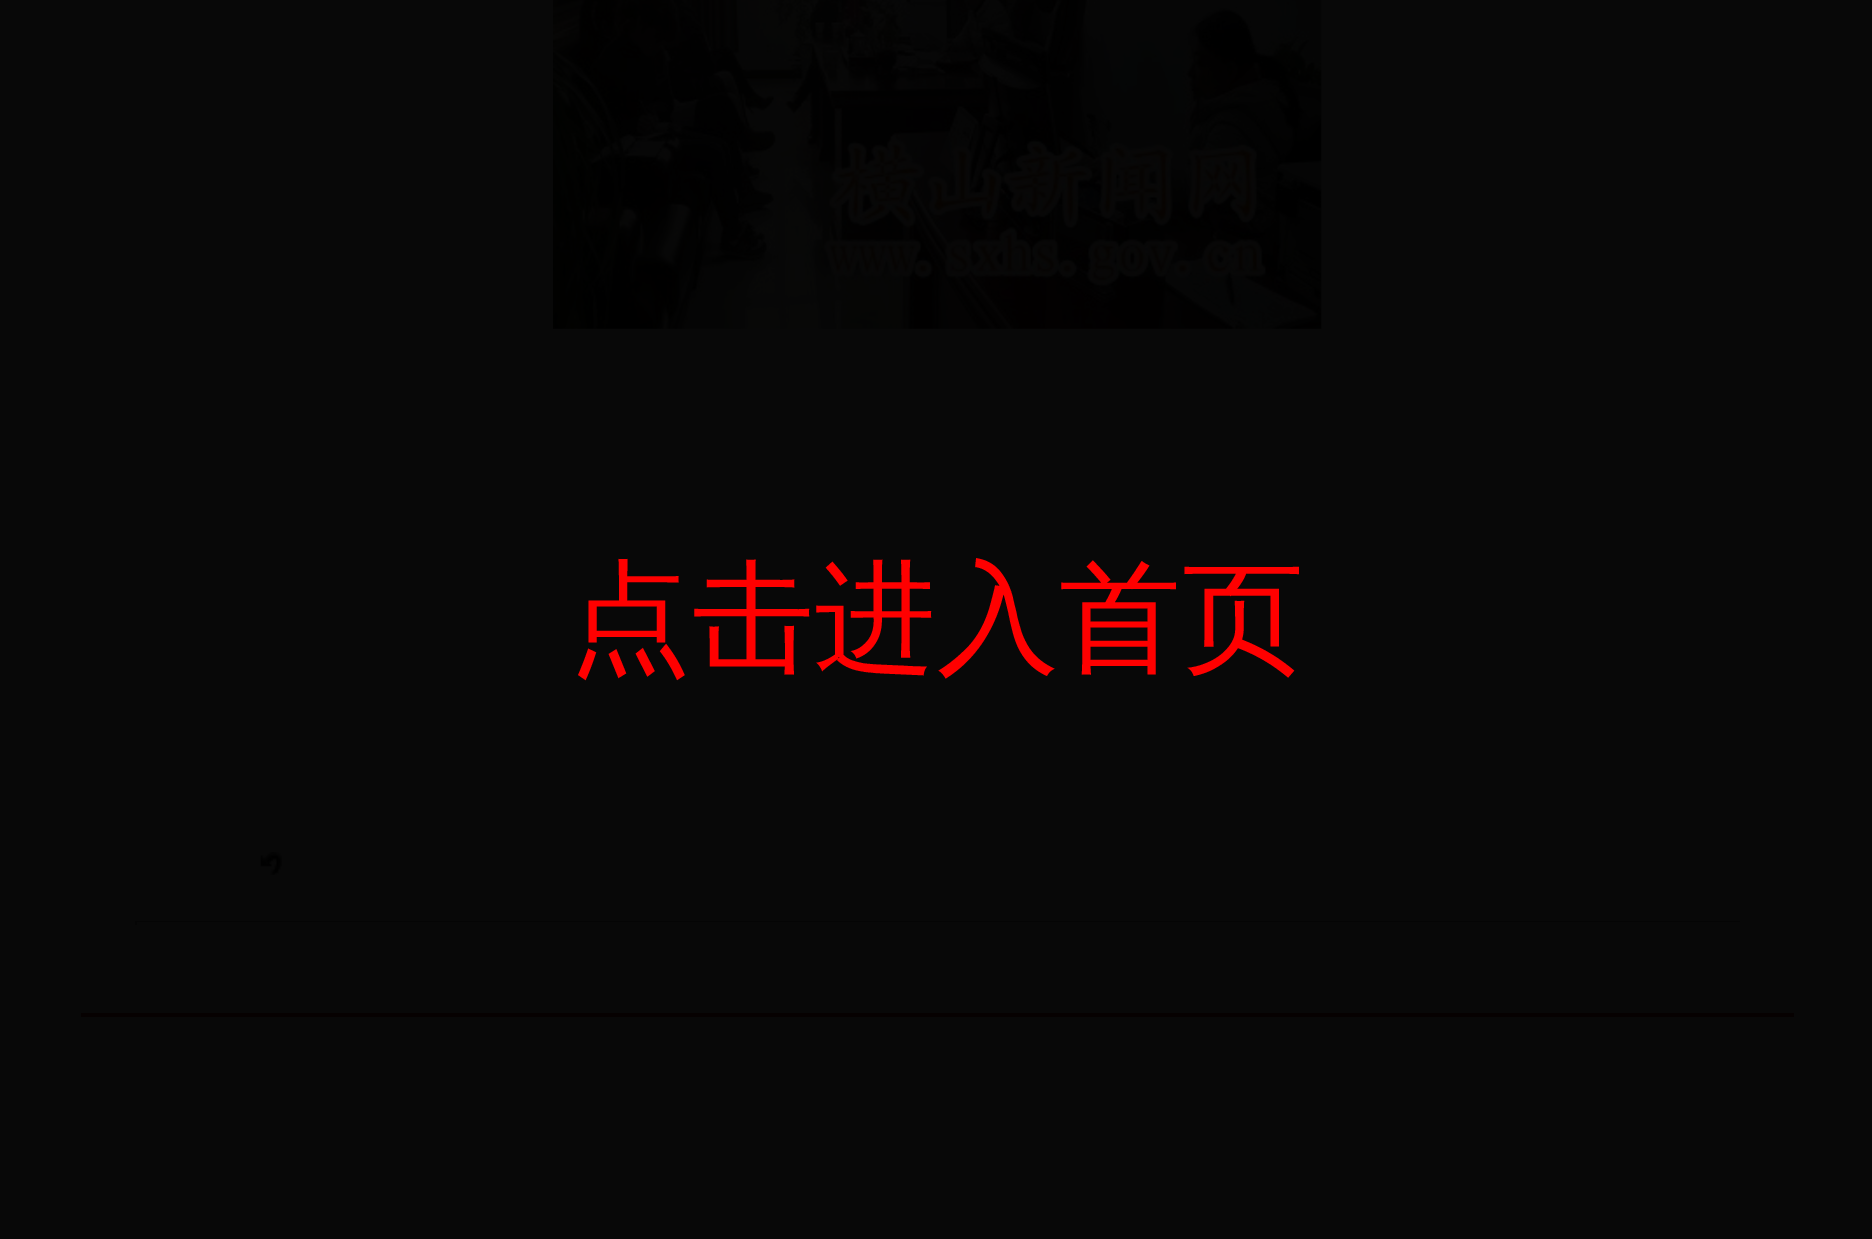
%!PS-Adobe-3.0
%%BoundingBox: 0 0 1872 1239
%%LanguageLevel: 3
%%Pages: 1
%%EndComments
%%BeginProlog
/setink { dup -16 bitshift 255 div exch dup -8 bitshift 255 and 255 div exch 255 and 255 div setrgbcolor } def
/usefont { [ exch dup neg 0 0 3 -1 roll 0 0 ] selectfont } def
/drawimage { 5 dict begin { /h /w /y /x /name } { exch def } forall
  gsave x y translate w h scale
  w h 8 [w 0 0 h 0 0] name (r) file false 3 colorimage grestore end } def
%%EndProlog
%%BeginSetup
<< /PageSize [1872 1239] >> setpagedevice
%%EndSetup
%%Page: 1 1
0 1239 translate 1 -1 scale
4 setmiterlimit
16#080808 setink
0 0 1872 1239 rectfill
(img1.raw) 553 0 769 329 drawimage
(img2.raw) 260 852 22 23 drawimage
[
    [135 921 1605 1 16#050505]
    [135 921 2 4 16#050505]
    [81 1013 1713 4 16#060101]
] { aload pop setink rectfill } forall
/WenQuanYiZenHei-Medium 122.5 usefont
16#FF0000 setink
569 660 moveto (点击进入首页) show
showpage
%%EOF
